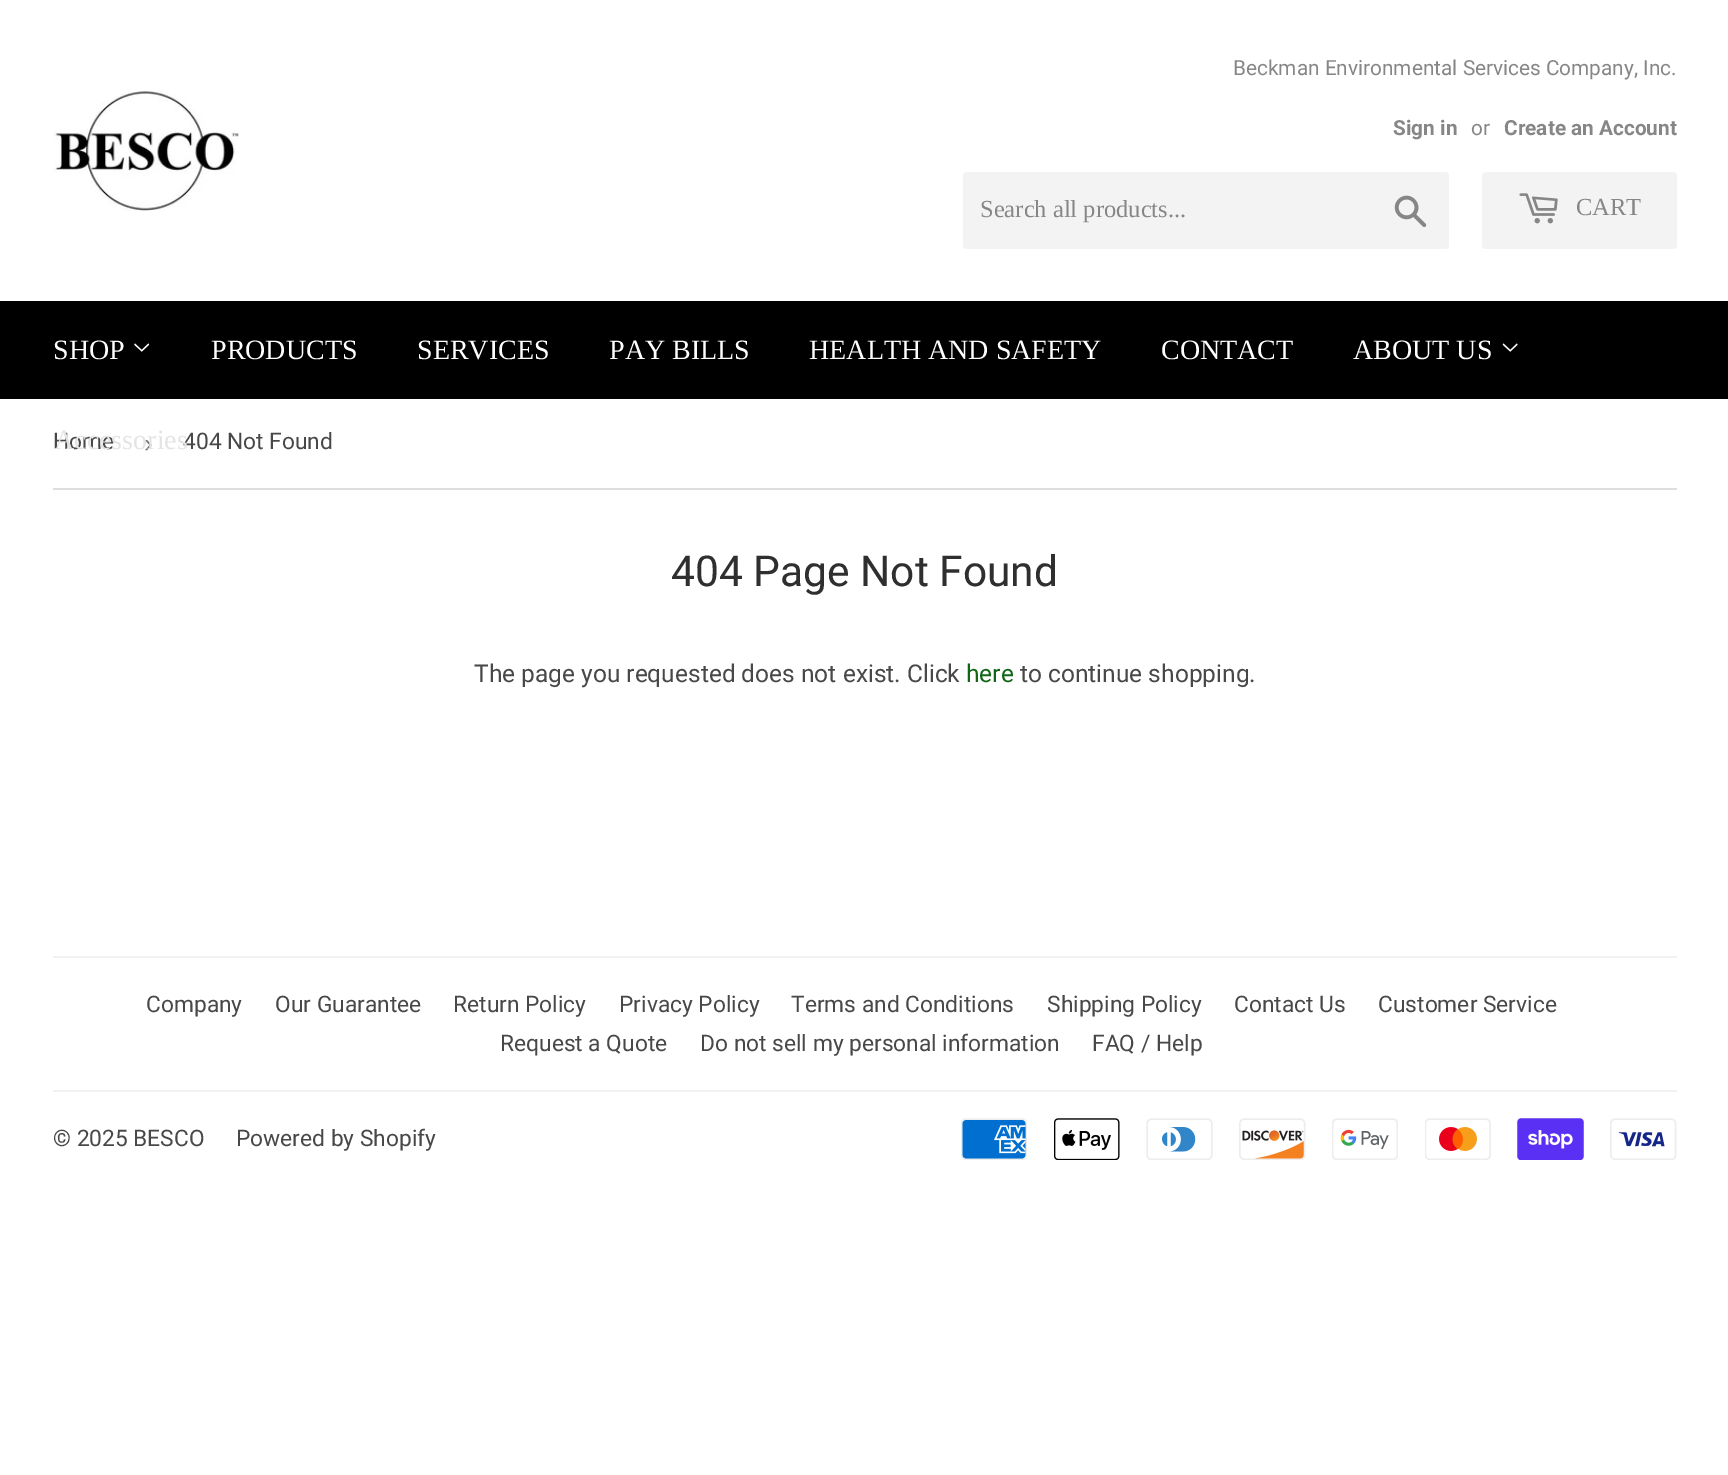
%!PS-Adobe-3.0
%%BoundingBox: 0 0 1728 1475
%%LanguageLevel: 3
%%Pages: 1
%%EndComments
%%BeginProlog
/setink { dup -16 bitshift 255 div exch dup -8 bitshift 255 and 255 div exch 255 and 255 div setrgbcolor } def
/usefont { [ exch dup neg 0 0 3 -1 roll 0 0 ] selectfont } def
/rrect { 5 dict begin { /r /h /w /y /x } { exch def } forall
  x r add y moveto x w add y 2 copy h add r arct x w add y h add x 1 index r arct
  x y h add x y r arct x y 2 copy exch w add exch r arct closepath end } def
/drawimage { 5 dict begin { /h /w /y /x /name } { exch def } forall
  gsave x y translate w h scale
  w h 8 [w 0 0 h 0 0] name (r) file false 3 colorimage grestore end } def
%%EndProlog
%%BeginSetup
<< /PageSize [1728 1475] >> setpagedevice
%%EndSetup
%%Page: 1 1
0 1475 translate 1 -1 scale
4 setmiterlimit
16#FFFFFF setink
0 0 1728 1475 rectfill
(img1.raw) 53 91 186 120 drawimage
/Roboto-Regular 20.8 usefont
16#868686 setink
1233 75 moveto (Beckman Environmental Services Company, Inc.) show
/Roboto-Bold 20.8 usefont
1393 135 moveto (Sign in) show
/Roboto-Regular 20.8 usefont
1471 135 moveto (or) show
/Roboto-Bold 20.8 usefont
1504 135 moveto (Create an Account) show
16#F3F3F3 setink
963 172 486 77 4 rrect fill
/LiberationSerif-Regular 24.5 usefont
16#868686 setink
980 217 moveto (Search all products...) show
(img2.raw) 1394 195 33 32 drawimage
16#F3F3F3 setink
1482 172 195 77 4 rrect fill
(img3.raw) 1519 193 39 31 drawimage
16#868686 setink
1576 215 moveto (CART) show
16#000000 setink
0 301 1728 98 rectfill
/LiberationSerif-Regular 28 usefont
16#FFFFFF setink
53 359 moveto (SHOP) show
(img4.raw) 134 343 16 9 drawimage
/Roboto-Regular 22.75 usefont
16#494848 setink
53 449 moveto (Home) show
/LiberationSans-Regular 26 usefont
16#767676 setink
144 452 moveto (›) show
/Roboto-Regular 22.75 usefont
16#494848 setink
183 449 moveto (404 Not Found) show
/LiberationSerif-Regular 28 usefont
16#E5E4E4 setink
54 449 moveto (Accessories) show
16#FFFFFF setink
[
    [(PRODUCTS) 211 359]
    [(SERVICES) 417 359]
    [(PAY BILLS) 609 359]
    [(HEALTH AND SAFETY) 809 359]
    [(CONTACT) 1161 359]
    [(ABOUT US) 1353 359]
] { aload pop moveto show } forall
(img5.raw) 1502 343 16 9 drawimage
16#DEDEDE setink
53 488 1624 2 rectfill
/Roboto-Regular 42.5 usefont
16#2F2F2F setink
671 586 moveto (404 Page Not Found) show
/Roboto-Regular 24.5 usefont
16#494848 setink
474 682 moveto (The page you requested does not exist. Click) show
16#116717 setink
966 682 moveto (here) show
16#494848 setink
1020 682 moveto (to continue shopping.) show
16#F2F2F2 setink
53 956 1624 2 rectfill
/Roboto-Regular 22.75 usefont
16#494848 setink
[
    [(Company) 146 1012]
    [(Our Guarantee) 275 1012]
    [(Return Policy) 453 1012]
    [(Privacy Policy) 619 1012]
    [(Terms and Conditions) 791 1012]
    [(Shipping Policy) 1047 1012]
    [(Contact Us) 1234 1012]
    [(Customer Service) 1378 1012]
    [(Request a Quote) 500 1051]
    [(Do not sell my personal information) 700 1051]
    [(FAQ / Help) 1092 1051]
] { aload pop moveto show } forall
16#F2F2F2 setink
53 1090 1624 2 rectfill
16#494848 setink
53 1146 moveto (© 2025 BESCO) show
236 1146 moveto (Powered by Shopify) show
(img6.raw) 961 1118 66 42 drawimage
(img7.raw) 1054 1118 66 42 drawimage
(img8.raw) 1146 1118 67 42 drawimage
(img9.raw) 1239 1118 67 42 drawimage
(img10.raw) 1332 1118 66 42 drawimage
(img11.raw) 1425 1118 66 42 drawimage
(img12.raw) 1517 1118 67 42 drawimage
(img13.raw) 1610 1118 67 42 drawimage
showpage
%%EOF
